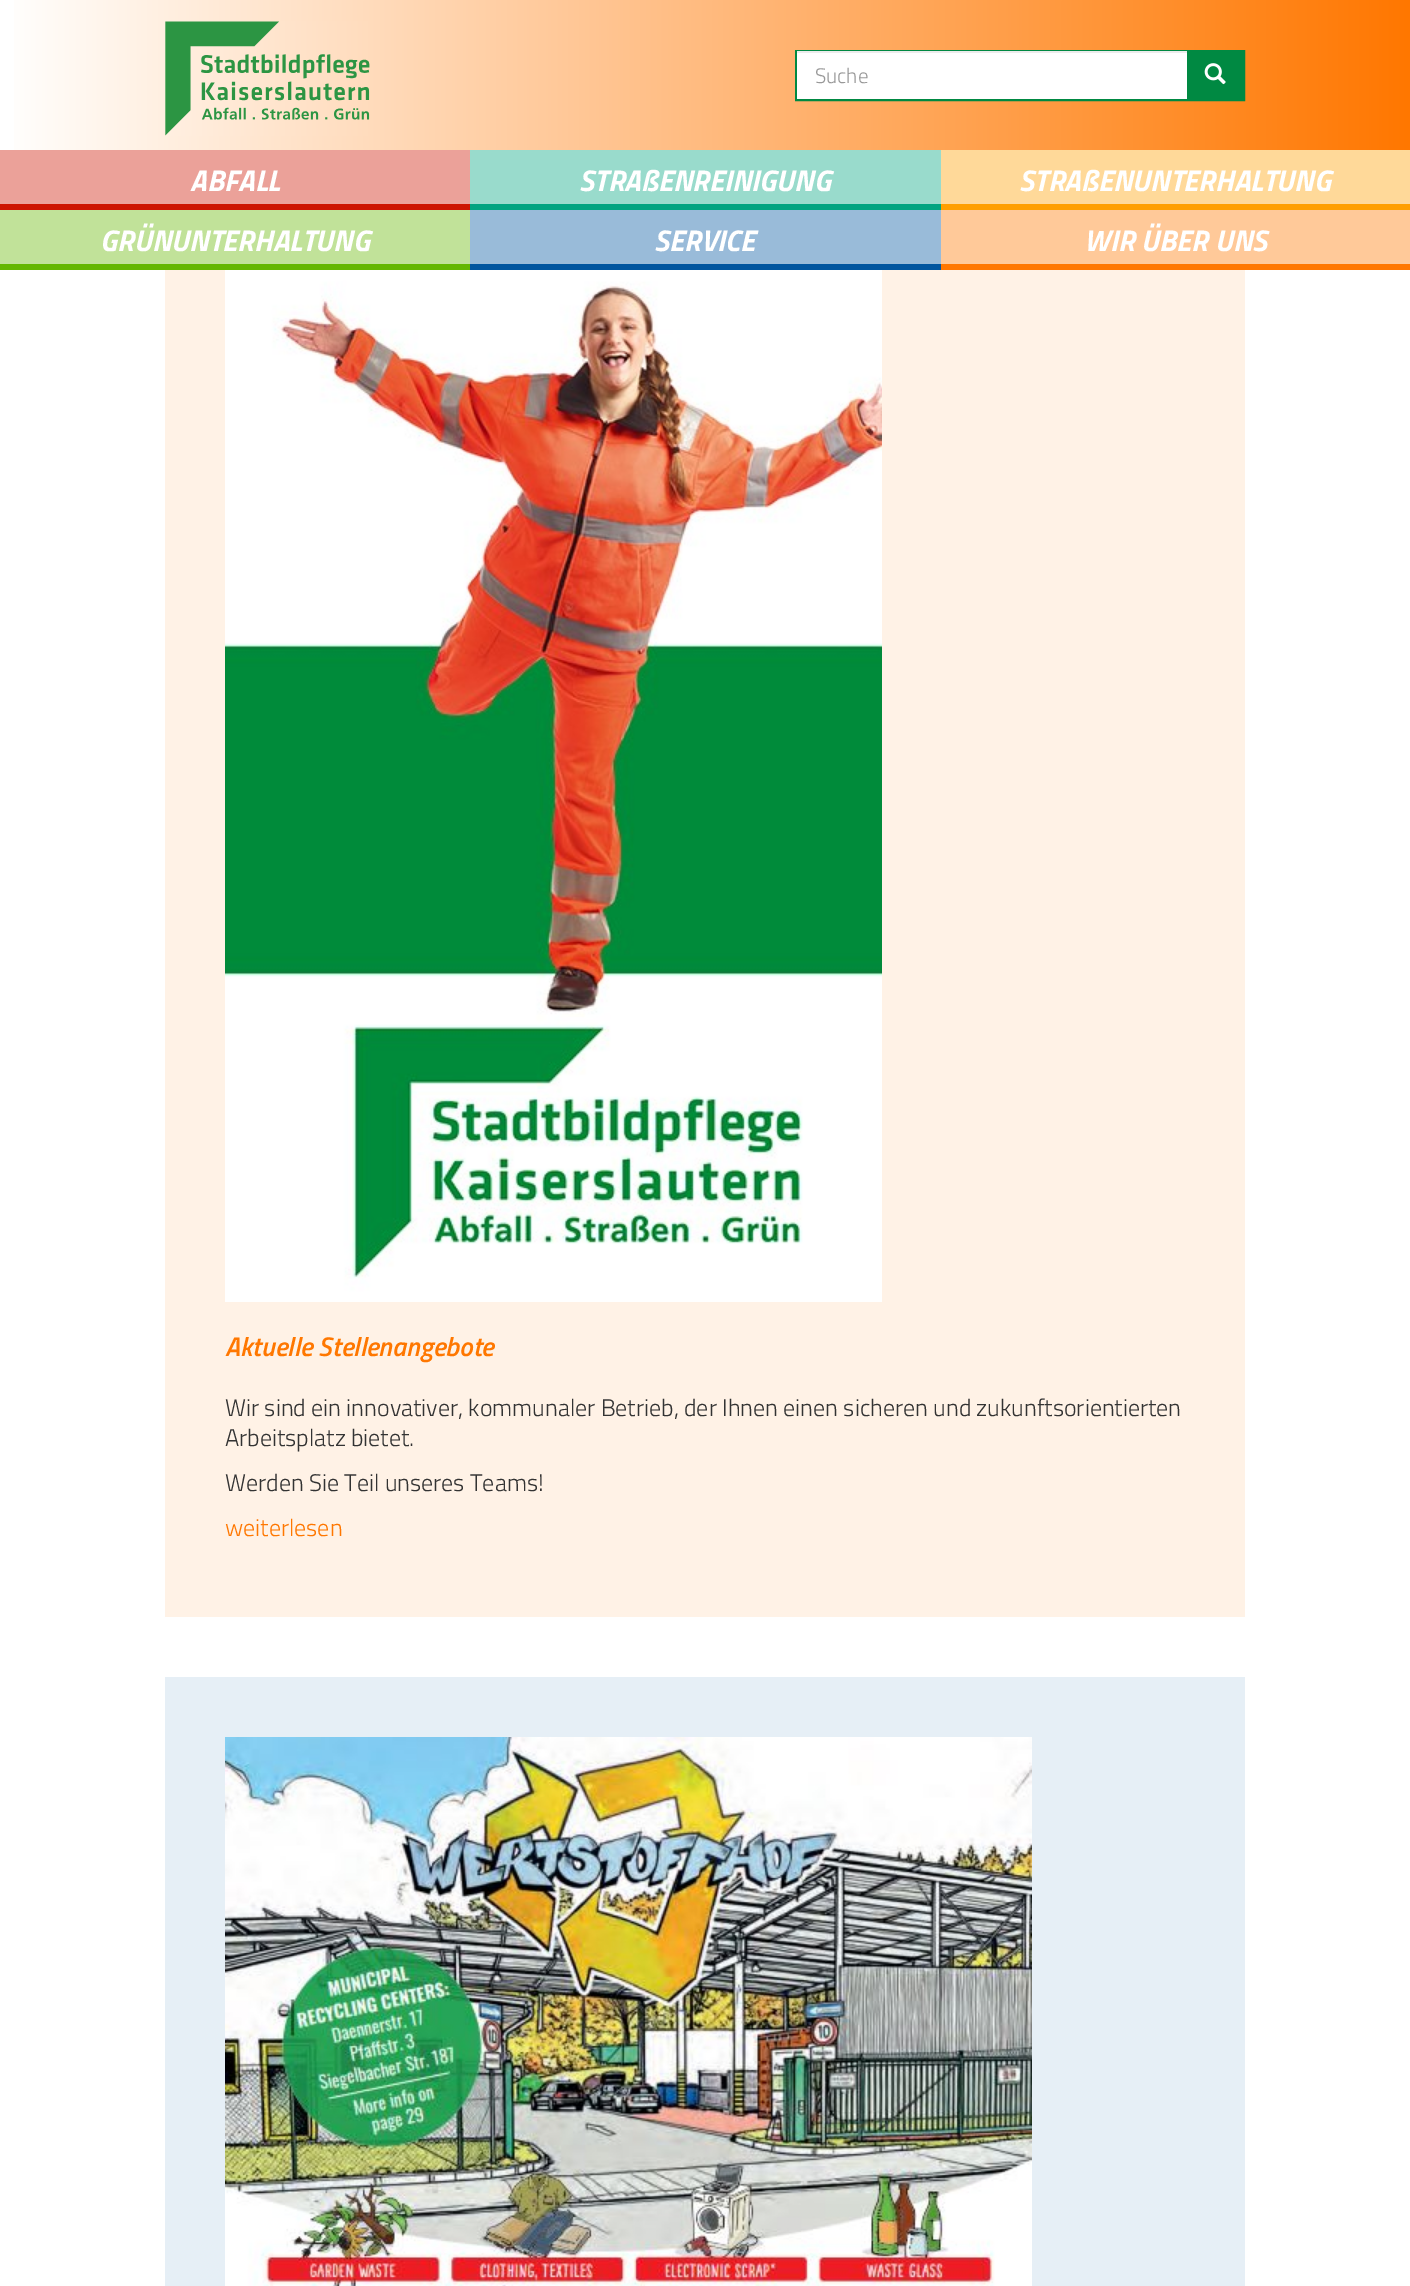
%!PS-Adobe-3.0
%%BoundingBox: 0 0 1410 2286
%%LanguageLevel: 3
%%Pages: 1
%%EndComments
%%BeginProlog
/setink { dup -16 bitshift 255 div exch dup -8 bitshift 255 and 255 div exch 255 and 255 div setrgbcolor } def
/usefont { [ exch dup neg 0 0 3 -1 roll 0 0 ] selectfont } def
/drawimage { 5 dict begin { /h /w /y /x /name } { exch def } forall
  gsave x y translate w h scale
  w h 8 [w 0 0 h 0 0] name (r) file false 3 colorimage grestore end } def
%%EndProlog
%%BeginSetup
<< /PageSize [1410 2286] >> setpagedevice
%%EndSetup
%%Page: 1 1
0 2286 translate 1 -1 scale
4 setmiterlimit
16#FFFFFF setink
0 0 1410 2286 rectfill
gsave 14 0 moveto 1410 0 lineto 1410 150 lineto 14 150 lineto closepath clip newpath
<< /ShadingType 2 /ColorSpace /DeviceRGB /Coords [1410 74 0 74] /Extend [true true] /Function << /FunctionType 2 /Domain [0 1] /C0 [1 0.467 0] /C1 [1 1 1] /N 1 >> >> shfill grestore
(img1.raw) 165 21 205 115 drawimage
16#008942 setink
2 setlinewidth
796 51 448 49 rectstroke
16#FFFFFF setink
797 53 390 46 rectfill
16#ECECEC setink
797 51 390 2 rectfill
/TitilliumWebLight-Light 21 usefont
16#999999 setink
815 83 moveto (Suche) show
16#008942 setink
1187 52 56 47 rectfill
(img2.raw) 1204 63 22 22 drawimage
16#EBA199 setink
0 150 470 54 rectfill
16#CD1400 setink
0 204 470 6 rectfill
/TitilliumWeb-BoldItalic 30 usefont
16#FFFFFF setink
190 191 moveto (ABFALL) show
16#99DBCC setink
470 150 471 54 rectfill
16#00A480 setink
470 204 471 6 rectfill
16#FFFFFF setink
579 191 moveto (STRAßENREINIGUNG) show
16#FFD999 setink
941 150 469 54 rectfill
16#FF9F00 setink
941 204 469 6 rectfill
16#FFFFFF setink
1019 191 moveto (STRAßENUNTERHALTUNG) show
16#C1E299 setink
0 210 470 54 rectfill
16#64B700 setink
0 264 470 6 rectfill
16#FFFFFF setink
100 251 moveto (GRÜNUNTERHALTUNG) show
16#99BBD9 setink
470 210 471 54 rectfill
16#00559F setink
470 264 471 6 rectfill
16#FFFFFF setink
654 251 moveto (SERVICE) show
16#FFC999 setink
941 210 469 54 rectfill
16#FF7700 setink
941 264 469 6 rectfill
16#FFFFFF setink
1084 251 moveto (WIR ÜBER UNS) show
16#FFF2E6 setink
165 270 1080 1347 rectfill
(img3.raw) 225 270 657 1032 drawimage
/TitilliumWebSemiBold-SemiBoldItalic 27 usefont
16#FF7700 setink
225 1356 moveto (Aktuelle Stellenangebote) show
/TitilliumWebLight-Light 24 usefont
16#333333 setink
[
    [(Wir sind ein innovativer, kommunaler Betrieb, der Ihnen einen sicheren und zukunftsorientierten) 225 1416]
    [(Arbeitsplatz bietet.) 225 1446]
    [(Werden Sie Teil unseres Teams!) 225 1491]
] { aload pop moveto show } forall
16#FF7700 setink
225 1536 moveto (weiterlesen) show
16#E6EFF6 setink
165 1677 1080 609 rectfill
(img4.raw) 225 1737 807 549 drawimage
showpage
%%EOF
